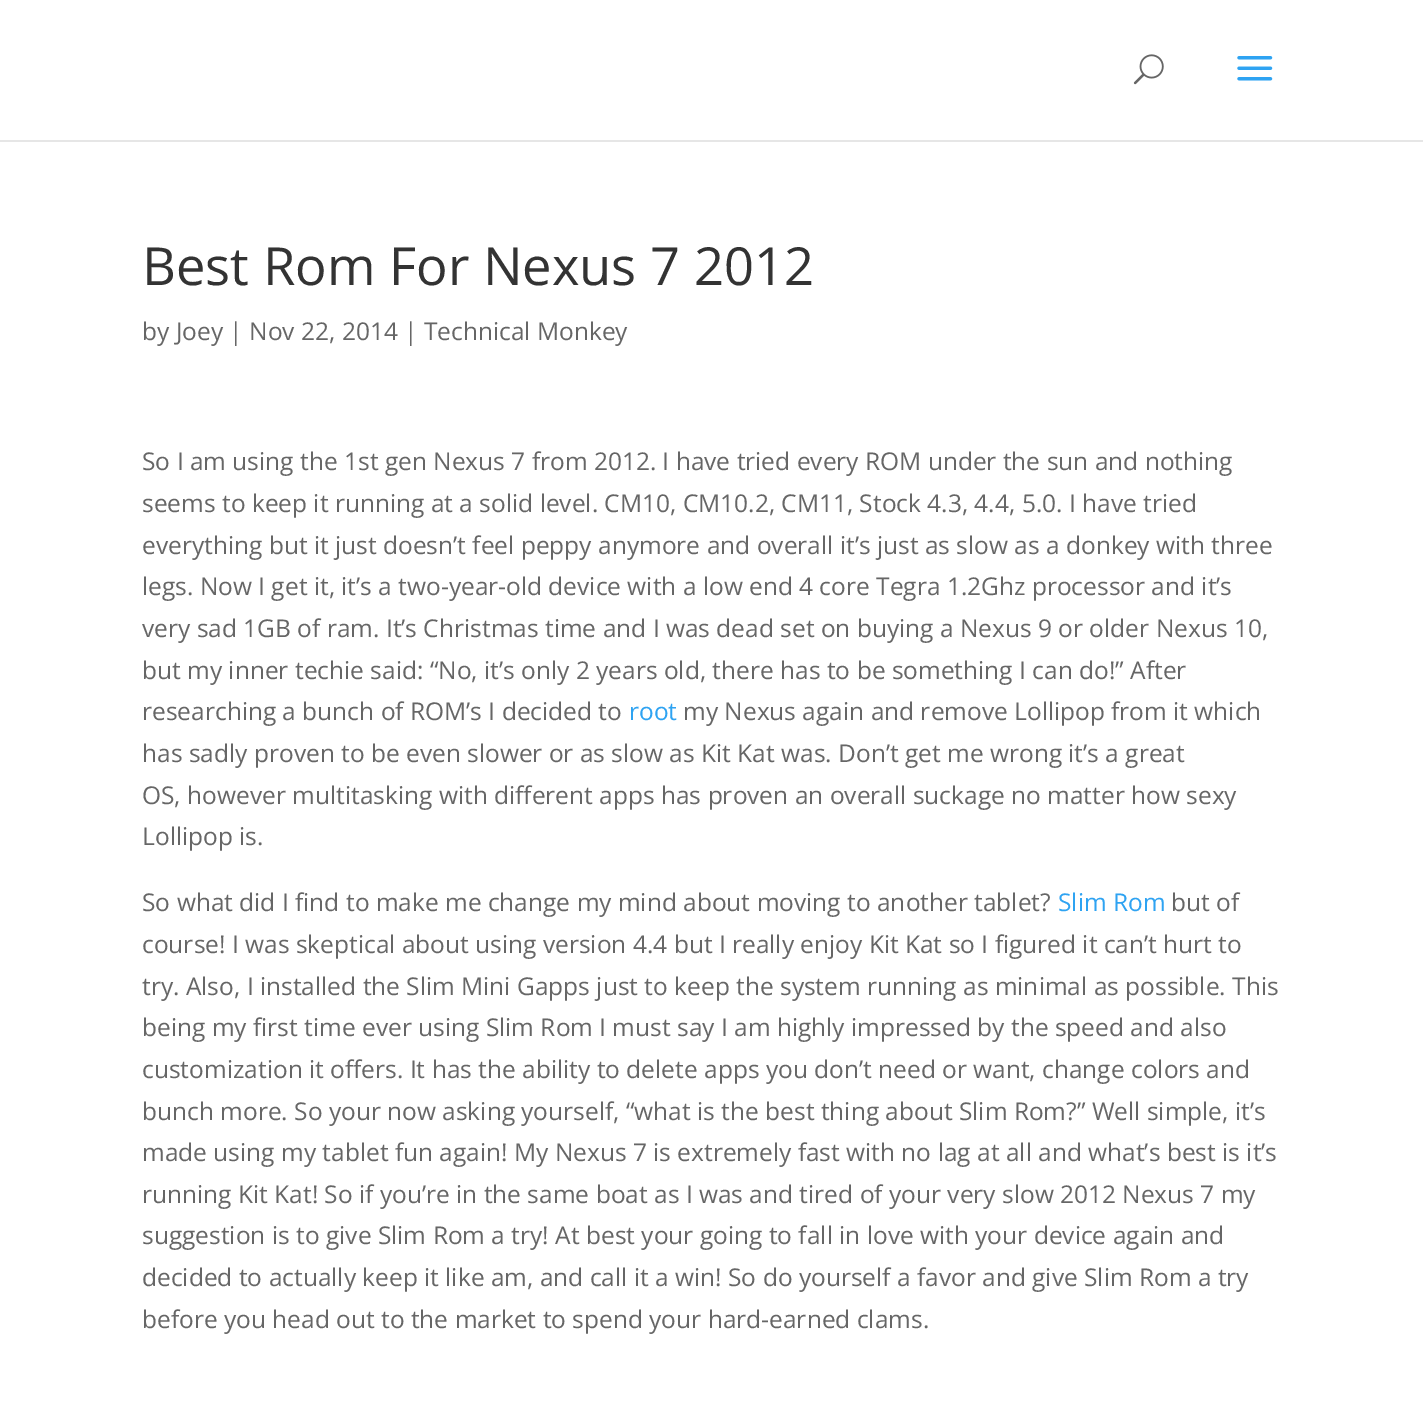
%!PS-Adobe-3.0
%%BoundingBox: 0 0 1423 1415
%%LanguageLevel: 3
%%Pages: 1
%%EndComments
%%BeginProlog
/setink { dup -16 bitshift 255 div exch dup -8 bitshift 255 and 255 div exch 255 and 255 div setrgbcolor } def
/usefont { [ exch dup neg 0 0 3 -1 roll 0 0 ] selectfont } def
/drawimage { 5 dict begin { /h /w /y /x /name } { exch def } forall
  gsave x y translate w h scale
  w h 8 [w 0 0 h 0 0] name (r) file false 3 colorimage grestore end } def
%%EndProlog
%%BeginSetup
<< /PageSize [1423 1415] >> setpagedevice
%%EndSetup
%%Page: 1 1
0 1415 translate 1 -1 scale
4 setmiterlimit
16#FFFFFF setink
0 0 1423 1415 rectfill
16#E6E6E6 setink
0 140 moveto 0 142 lineto 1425 142 lineto 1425 2 lineto 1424 2 lineto 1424 140 lineto closepath fill
(img1.raw) 1133 54 31 31 drawimage
(img2.raw) 1237 56 36 25 drawimage
/OpenSans-Regular 52.5 usefont
16#333333 setink
142 285 moveto (Best Rom For Nexus 7 2012) show
/OpenSans-Regular 24.5 usefont
16#666666 setink
[
    [(by Joey | Nov 22, 2014 | Technical Monkey) 142 340]
    [(So I am using the 1st gen Nexus 7 from 2012. I have tried every ROM under the sun and nothing) 142 470]
    [(seems to keep it running at a solid level. CM10, CM10.2, CM11, Stock 4.3, 4.4, 5.0. I have tried) 142 512]
    [(everything but it just doesn’t feel peppy anymore and overall it’s just as slow as a donkey with three) 142 554]
    [(legs. Now I get it, it’s a two-year-old device with a low end 4 core Tegra 1.2Ghz processor and it’s) 142 595]
    [(very sad 1GB of ram. It’s Christmas time and I was dead set on buying a Nexus 9 or older Nexus 10,) 142 637]
    [(but my inner techie said: “No, it’s only 2 years old, there has to be something I can do!” After) 142 679]
    [(researching a bunch of ROM’s I decided to) 142 720]
] { aload pop moveto show } forall
16#2EA3F2 setink
629 720 moveto (root) show
16#666666 setink
[
    [(my Nexus again and remove Lollipop from it which) 683 720]
    [(has sadly proven to be even slower or as slow as Kit Kat was. Don’t get me wrong it’s a great) 142 762]
    [(OS, however multitasking with different apps has proven an overall suckage no matter how sexy) 142 804]
    [(Lollipop is.) 142 845]
    [(So what did I find to make me change my mind about moving to another tablet?) 142 911]
] { aload pop moveto show } forall
16#2EA3F2 setink
1058 911 moveto (Slim Rom) show
16#666666 setink
[
    [(but of) 1171 911]
    [(course! I was skeptical about using version 4.4 but I really enjoy Kit Kat so I figured it can’t hurt to) 142 953]
    [(try. Also, I installed the Slim Mini Gapps just to keep the system running as minimal as possible. This) 142 995]
    [(being my first time ever using Slim Rom I must say I am highly impressed by the speed and also) 142 1036]
    [(customization it offers. It has the ability to delete apps you don’t need or want, change colors and) 142 1078]
    [(bunch more. So your now asking yourself, “what is the best thing about Slim Rom?” Well simple, it’s) 142 1120]
    [(made using my tablet fun again! My Nexus 7 is extremely fast with no lag at all and what’s best is it’s) 142 1161]
    [(running Kit Kat! So if you’re in the same boat as I was and tired of your very slow 2012 Nexus 7 my) 142 1203]
    [(suggestion is to give Slim Rom a try! At best your going to fall in love with your device again and) 142 1244]
    [(decided to actually keep it like am, and call it a win! So do yourself a favor and give Slim Rom a try) 142 1286]
    [(before you head out to the market to spend your hard-earned clams.) 142 1328]
] { aload pop moveto show } forall
showpage
%%EOF
